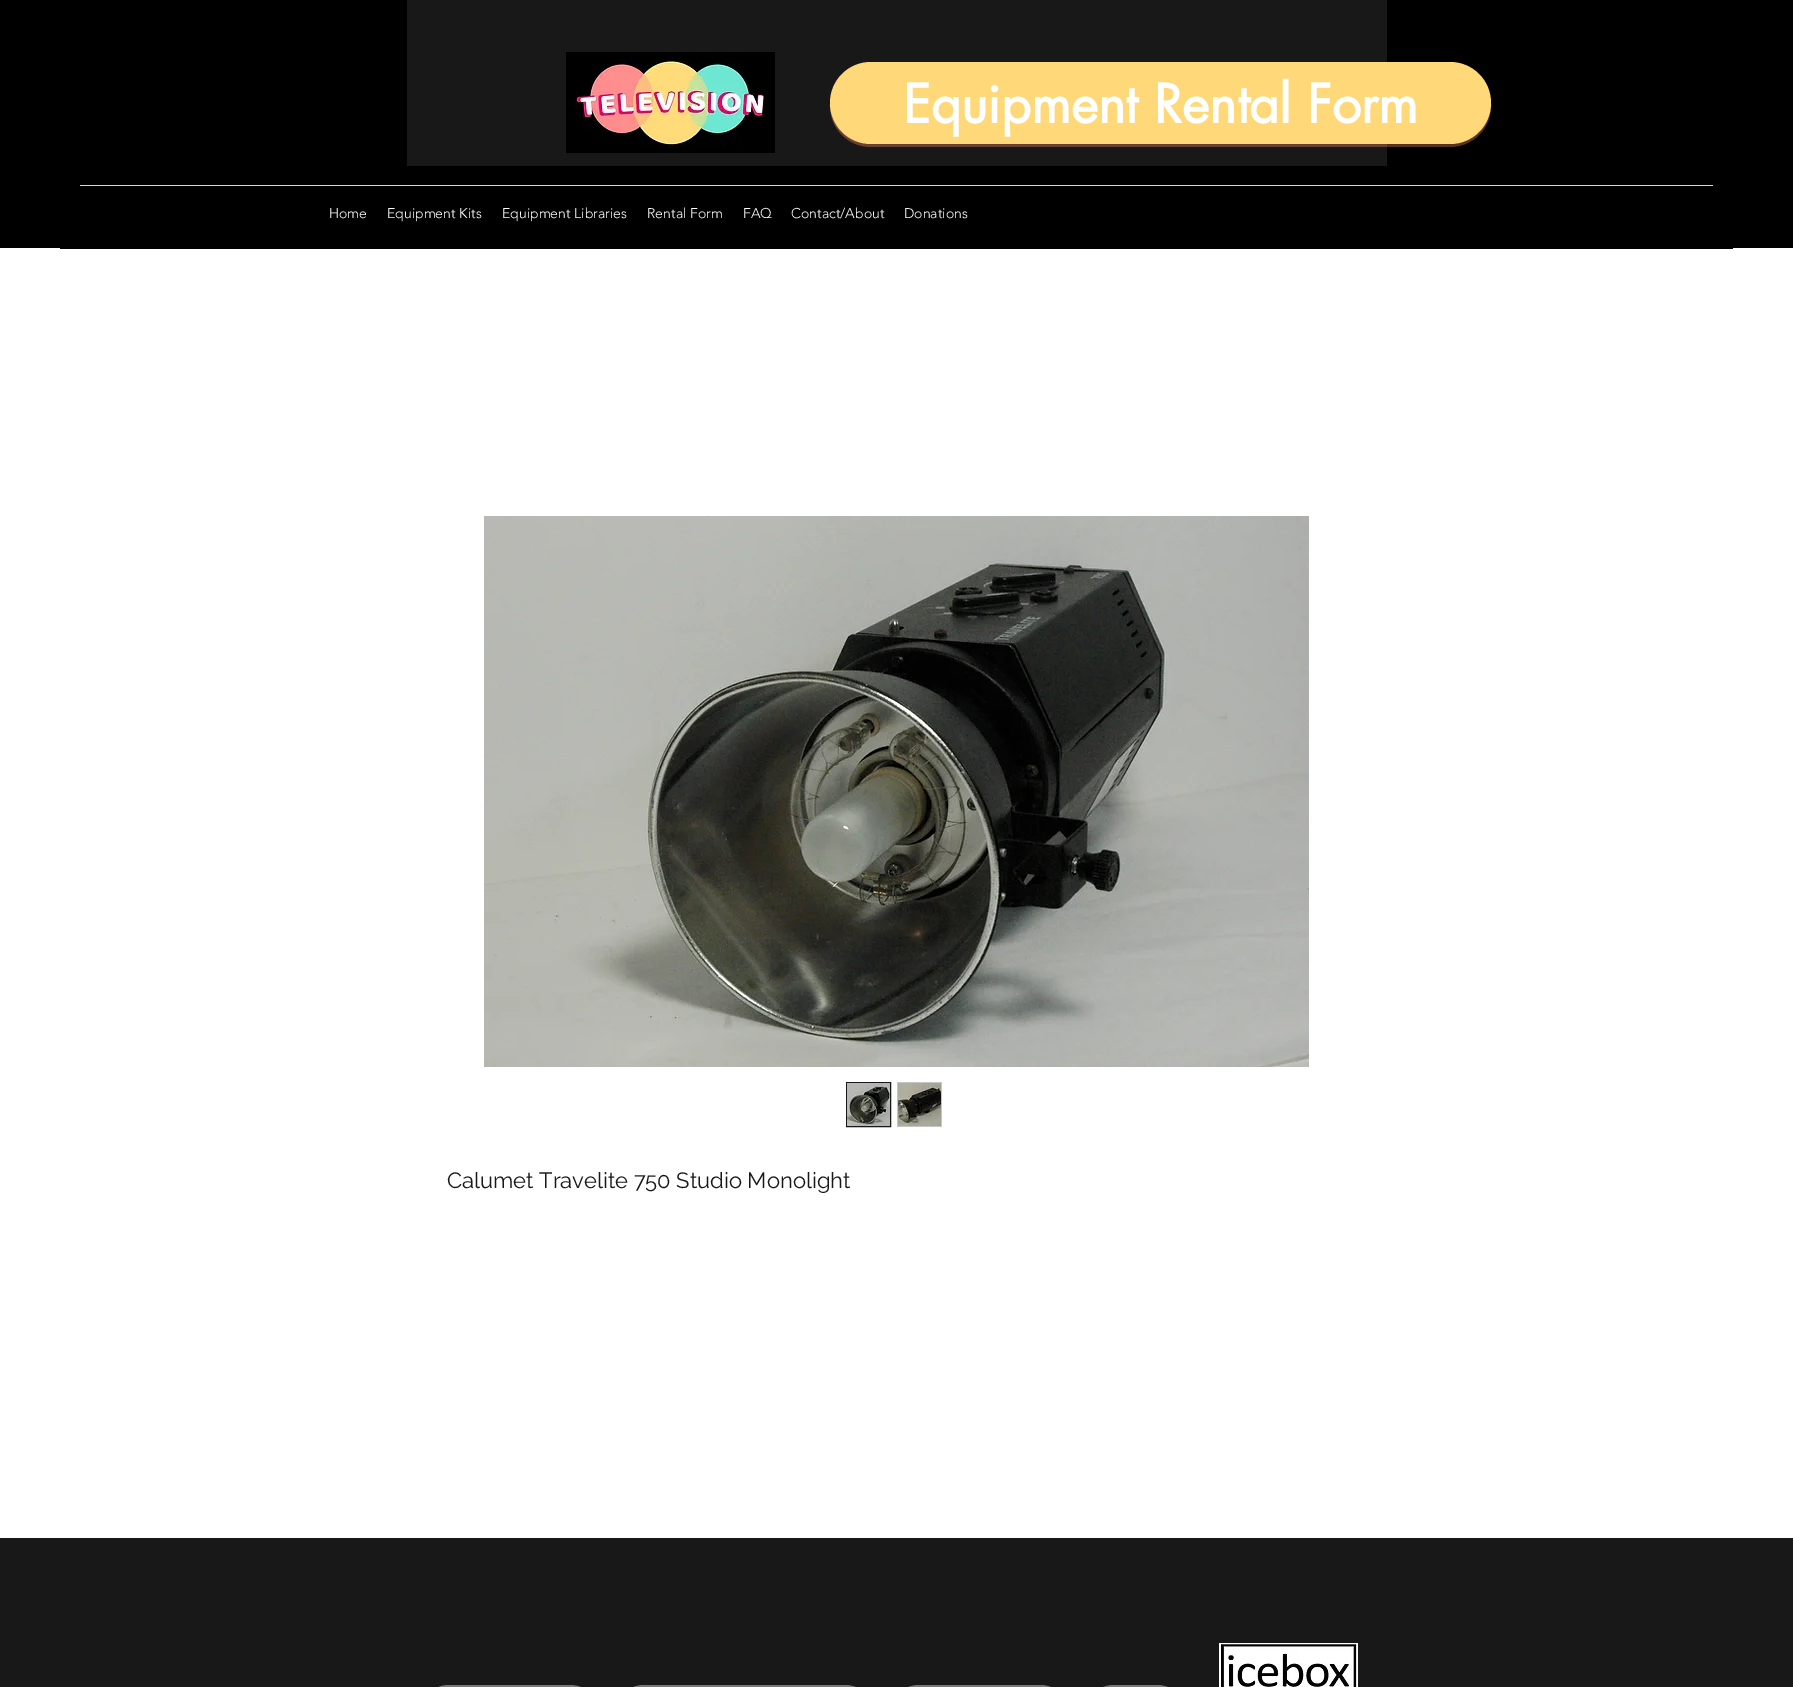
%!PS-Adobe-3.0
%%BoundingBox: 0 0 1793 1687
%%LanguageLevel: 3
%%Pages: 1
%%EndComments
%%BeginProlog
/setink { dup -16 bitshift 255 div exch dup -8 bitshift 255 and 255 div exch 255 and 255 div setrgbcolor } def
/usefont { [ exch dup neg 0 0 3 -1 roll 0 0 ] selectfont } def
/setalpha { dup .setfillconstantalpha .setstrokeconstantalpha } def
/rrect { 5 dict begin { /r /h /w /y /x } { exch def } forall
  x r add y moveto x w add y 2 copy h add r arct x w add y h add x 1 index r arct
  x y h add x y r arct x y 2 copy exch w add exch r arct closepath end } def
/drawimage { 5 dict begin { /h /w /y /x /name } { exch def } forall
  gsave x y translate w h scale
  w h 8 [w 0 0 h 0 0] name (r) file false 3 colorimage grestore end } def
%%EndProlog
%%BeginSetup
<< /PageSize [1793 1687] /PageUsesTransparency true >> setpagedevice
%%EndSetup
%%Page: 1 1
0 .pushpdf14devicefilter
0 1687 translate 1 -1 scale
4 setmiterlimit
16#FFFFFF setink
0 0 1793 1687 rectfill
16#000000 setink
0 0 1793 248 rectfill
16#181818 setink
407 0 980 166 rectfill
(img1.raw) 566 52 209 101 drawimage
0.35 setalpha
16#FF8C62 setink
830 104 moveto 829 128 848 147 871 147 curveto 1450 147 lineto 1473 147 1492 128 1491 104 curveto 1490 126 1472 144 1450 144 curveto 871 144 lineto 849 144 831 126 830 104 curveto closepath fill
1 setalpha
16#FFD879 setink
830 62 661 82 41 rrect fill
/futura-Bold 52 usefont
16#FFFFFF setink
903 123 moveto (Equipment Rental Form) show
16#D9D9D9 setink
80 185 1633 1 rectfill
/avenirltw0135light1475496-Light 14 usefont
16#FFFFFF setink
[
    [(Home) 329 218]
    [(Equipment Kits) 387 218]
    [(Equipment Libraries) 502 218]
    [(Rental Form) 647 218]
    [(FAQ) 743 218]
    [(Contact/About) 791 218]
    [(Donations) 904 218]
] { aload pop moveto show } forall
16#000000 setink
60 248 1673 1 rectfill
(img2.raw) 484 516 825 551 drawimage
16#181818 setink
846.5 1082.5 44 44 rectstroke
(img3.raw) 847 1083 43 43 drawimage
16#C5C5C5 setink
897 1082 45 45 rectfill
(img4.raw) 898 1083 43 43 drawimage
/Raleway-Regular 22 usefont
16#181818 setink
447 1188 moveto (Calumet Travelite 750 Studio Monolight) show
0 1538 1793 149 rectfill
(img5.raw) 1219 1643 139 44 drawimage
16#777777 setink
420 1685 179 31 29 rrect fill
615 1685 259 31 29 rrect fill
890 1685 179 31 29 rrect fill
1085 1685 101 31 29 rrect fill
.poppdf14devicefilter showpage
%%EOF
